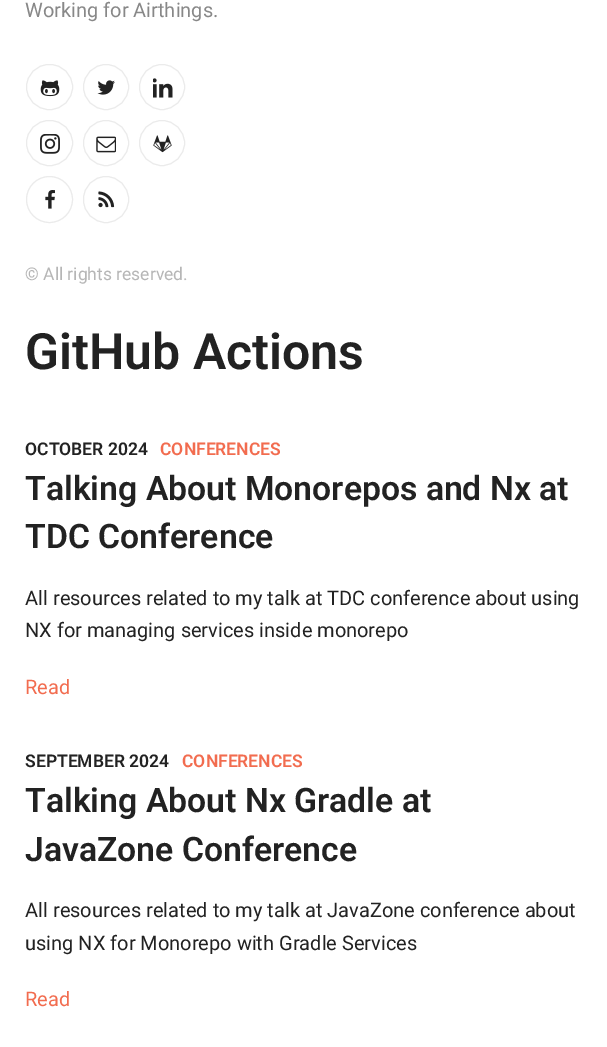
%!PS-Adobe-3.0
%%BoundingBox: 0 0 607 1047
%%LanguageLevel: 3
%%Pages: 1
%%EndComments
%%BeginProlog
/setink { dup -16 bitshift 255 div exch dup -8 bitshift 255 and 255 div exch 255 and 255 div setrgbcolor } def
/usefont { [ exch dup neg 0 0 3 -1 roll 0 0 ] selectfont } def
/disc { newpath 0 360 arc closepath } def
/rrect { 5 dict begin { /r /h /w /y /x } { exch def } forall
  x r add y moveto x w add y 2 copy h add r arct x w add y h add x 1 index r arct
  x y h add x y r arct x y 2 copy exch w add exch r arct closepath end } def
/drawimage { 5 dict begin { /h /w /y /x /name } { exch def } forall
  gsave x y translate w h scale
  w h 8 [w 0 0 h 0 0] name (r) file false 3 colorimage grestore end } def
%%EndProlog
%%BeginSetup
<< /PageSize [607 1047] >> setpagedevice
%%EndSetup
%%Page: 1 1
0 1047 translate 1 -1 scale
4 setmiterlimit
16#FFFFFF setink
0 0 607 1047 rectfill
/Roboto-Regular 20 usefont
16#888888 setink
25 17 moveto (Working for Airthings.) show
16#EBEBEB setink
26.5 64.5 46 45 22.5 rrect stroke
(img1.raw) 40 80 20 17 drawimage
106 87 22.5 disc stroke
(img2.raw) 97 80 18 15 drawimage
162 87 22.5 disc stroke
(img3.raw) 153 78 20 20 drawimage
26.5 120.5 46 45 22.5 rrect stroke
(img4.raw) 40 134 20 20 drawimage
106 143 22.5 disc stroke
(img5.raw) 96 136 20 17 drawimage
162 143 22.5 disc stroke
(img6.raw) 153 135 19 18 drawimage
49.5 199.5 23 disc stroke
(img7.raw) 45 190 10 19 drawimage
83.5 176.5 45 46 22.5 rrect stroke
(img8.raw) 98 191 17 17 drawimage
/Roboto-Regular 17.5 usefont
16#B6B6B6 setink
25 280 moveto (© All rights reserved.) show
/Roboto-SemiBold 50 usefont
16#222222 setink
25 369 moveto (GitHub Actions) show
/Roboto-SemiBold 17.5 usefont
25 455 moveto (OCTOBER 2024) show
16#F26C4F setink
160 455 moveto (CONFERENCES) show
/Roboto-SemiBold 33.75 usefont
16#222222 setink
25 500 moveto (Talking About Monorepos and Nx at) show
25 548 moveto (TDC Conference) show
/Roboto-Regular 20 usefont
25 605 moveto (All resources related to my talk at TDC conference about using) show
25 637 moveto (NX for managing services inside monorepo) show
16#F26C4F setink
25 694 moveto (Read) show
/Roboto-SemiBold 17.5 usefont
16#222222 setink
25 767 moveto (SEPTEMBER 2024) show
16#F26C4F setink
182 767 moveto (CONFERENCES) show
/Roboto-SemiBold 33.75 usefont
16#222222 setink
25 812 moveto (Talking About Nx Gradle at) show
25 861 moveto (JavaZone Conference) show
/Roboto-Regular 20 usefont
25 917 moveto (All resources related to my talk at JavaZone conference about) show
25 950 moveto (using NX for Monorepo with Gradle Services) show
16#F26C4F setink
25 1006 moveto (Read) show
showpage
%%EOF
